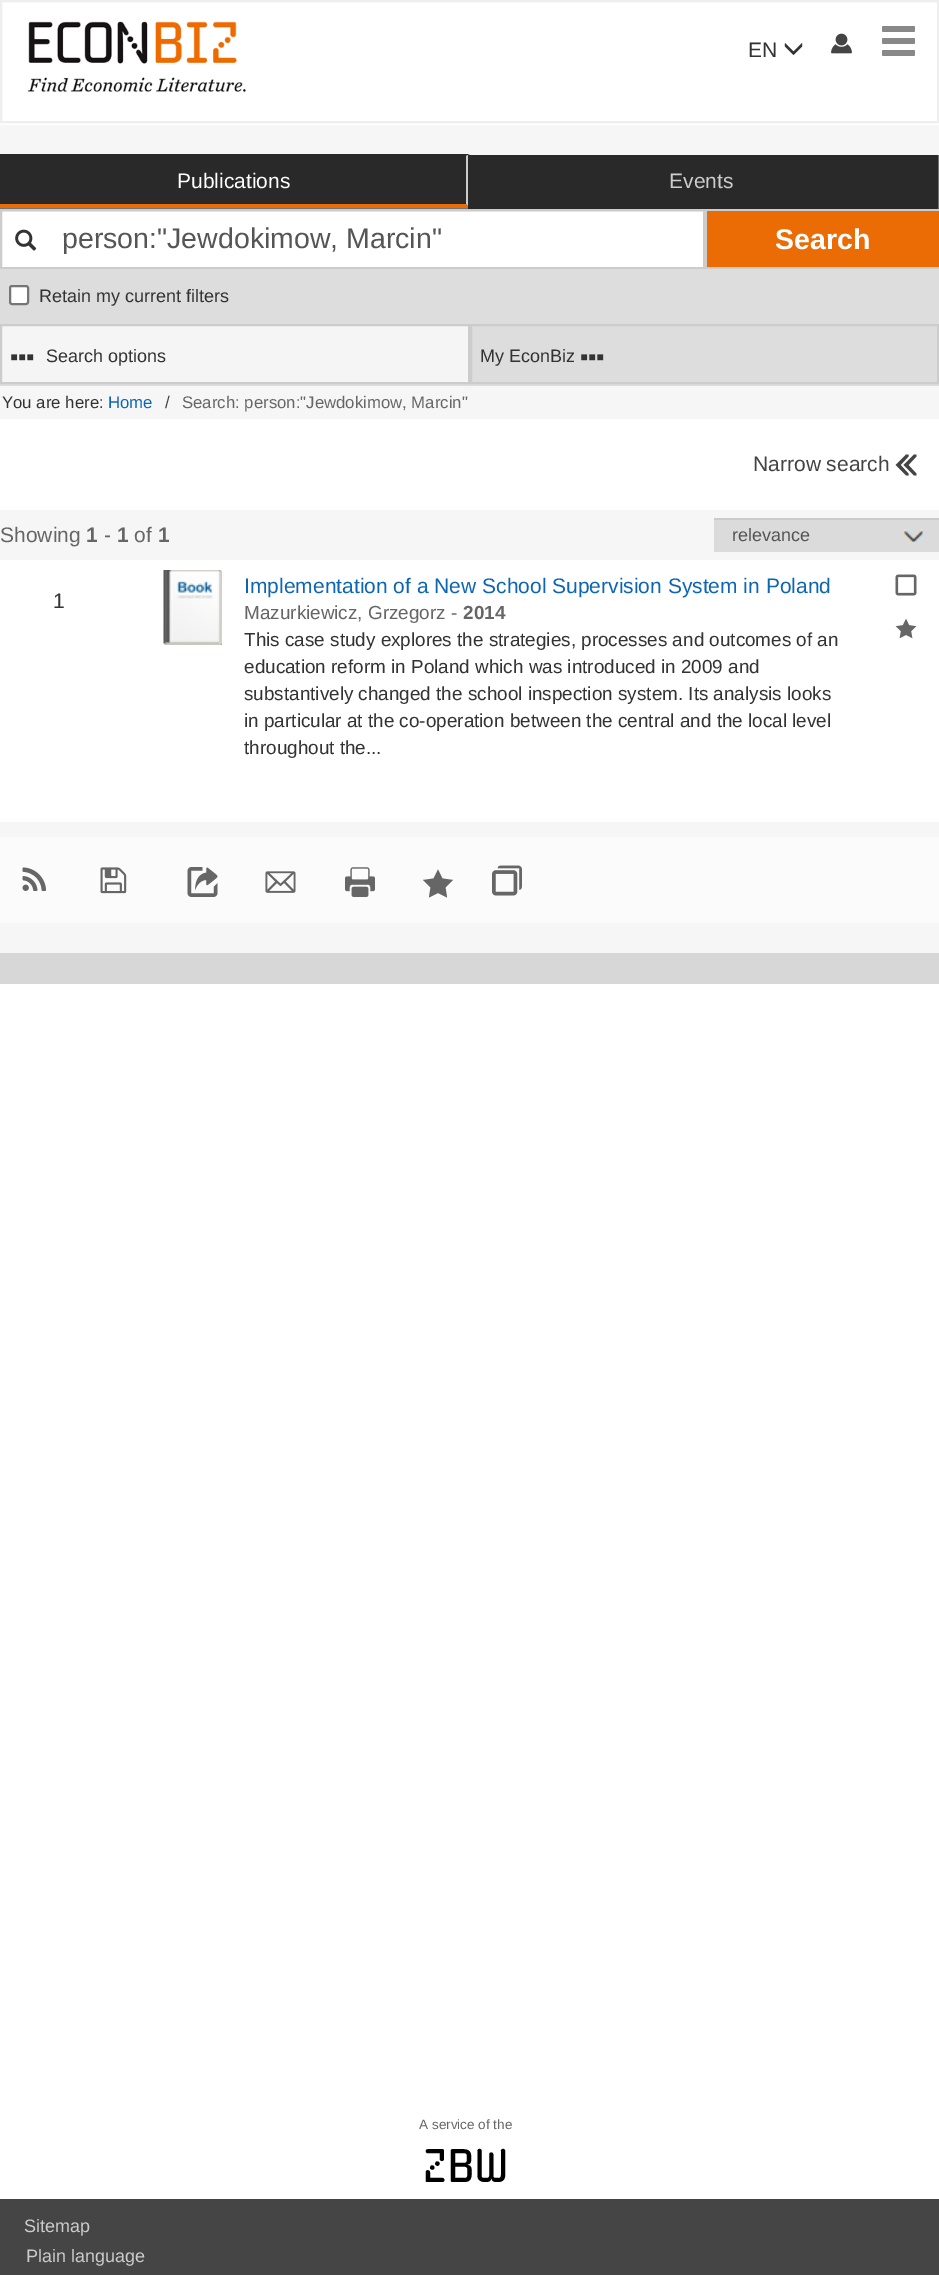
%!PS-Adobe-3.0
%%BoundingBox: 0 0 939 2275
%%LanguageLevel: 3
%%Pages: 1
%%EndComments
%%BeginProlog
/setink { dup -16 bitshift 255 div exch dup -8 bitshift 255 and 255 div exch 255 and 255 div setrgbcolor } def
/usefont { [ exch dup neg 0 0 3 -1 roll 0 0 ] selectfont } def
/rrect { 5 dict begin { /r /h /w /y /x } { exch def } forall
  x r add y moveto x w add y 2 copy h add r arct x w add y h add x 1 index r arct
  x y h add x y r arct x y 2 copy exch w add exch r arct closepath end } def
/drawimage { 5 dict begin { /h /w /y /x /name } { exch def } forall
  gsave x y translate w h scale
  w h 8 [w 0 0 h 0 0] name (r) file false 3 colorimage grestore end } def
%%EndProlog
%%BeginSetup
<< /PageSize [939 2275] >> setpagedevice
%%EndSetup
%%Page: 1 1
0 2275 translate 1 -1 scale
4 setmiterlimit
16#FFFFFF setink
0 0 939 2275 rectfill
16#EEEEEE setink
2 setlinewidth
1 1 937 121 rectstroke
(img1.raw) 27 21 219 72 drawimage
/LiberationSans-Regular 21 usefont
16#333333 setink
748 57 moveto (EN) show
(img2.raw) 784 43 19 12 drawimage
(img3.raw) 831 33 21 21 drawimage
16#888888 setink
882 26 33 6 1.5 rrect fill
882 38 33 6 1.5 rrect fill
882 50 33 6 1.5 rrect fill
[
    [0 125 939 294 16#F6F6F6]
    [0 155 939 54 16#747474]
    [0 156 466 48 16#292929]
] { aload pop setink rectfill } forall
0 154 moveto 470 154 lineto 466 156 lineto 0 156 lineto closepath fill
16#CCCCCC setink
470 154 moveto 470 208 lineto 466 204 lineto 466 156 lineto closepath fill
16#EB6B05 setink
470 208 moveto 0 208 lineto 0 204 lineto 466 204 lineto closepath fill
16#FFFFFF setink
177 188 moveto (Publications) show
[
    [468 157 467 47 16#292929]
    [468 155 470 2 16#292929]
    [935 155 3 54 16#292929]
    [468 204 470 5 16#292929]
] { aload pop setink rectfill } forall
16#CCCCCC setink
669 188 moveto (Events) show
16#FFFFFF setink
2 212 701 55 rectfill
16#ECECEC setink
2 211 702 1 rectfill
16#CCCCCC setink
1 210 703 58 rectstroke
(img4.raw) 15 229 22 22 drawimage
/LiberationSans-Regular 28.5 usefont
16#555555 setink
62 248 moveto (person:"Jewdokimow, Marcin") show
[
    [707 211 232 56 16#EB6B05]
    [705 209 234 2 16#CCCCCC]
    [705 267 234 2 16#CCCCCC]
    [705 209 2 60 16#CCCCCC]
] { aload pop setink rectfill } forall
/LiberationSans-Bold 28.5 usefont
16#FFFFFF setink
775 249 moveto (Search) show
16#DDDDDD setink
0 269 939 117 rectfill
16#FFFFFF setink
10 286 18 18 2 rrect gsave fill grestore
16#767676 setink
stroke
/LiberationSans-Regular 18 usefont
16#333333 setink
39 302 moveto (Retain my current filters) show
16#F5F5F5 setink
1 325 moveto 469 325 lineto 469 383 lineto 1 383 lineto closepath gsave fill grestore
16#CCCCCC setink
stroke
(img5.raw) 11 354 23 7 drawimage
16#333333 setink
46 362 moveto (Search options) show
16#CCCCCC setink
471 325 467 58 rectstroke
16#333333 setink
480 362 moveto (My EconBiz) show
(img6.raw) 581 354 23 7 drawimage
/LiberationSans-Regular 16.75 usefont
2 408 moveto (You are here:) show
16#0C66B5 setink
108 408 moveto (Home) show
16#444444 setink
165 408 moveto (/) show
16#666666 setink
182 408 moveto (Search: person:"Jewdokimow, Marcin") show
/LiberationSans-Regular 21 usefont
16#444444 setink
753 471 moveto (Narrow search) show
(img7.raw) 895 454 22 22 drawimage
16#F6F6F6 setink
0 510 939 443 rectfill
16#666666 setink
0 542 moveto (Showing) show
/LiberationSans-Bold 21 usefont
86 542 moveto (1) show
/LiberationSans-Regular 21 usefont
104 542 moveto (-) show
/LiberationSans-Bold 21 usefont
117 542 moveto (1) show
/LiberationSans-Regular 21 usefont
134 542 moveto (of) show
/LiberationSans-Bold 21 usefont
158 542 moveto (1) show
16#DBDBDB setink
714 520 225 32 rectfill
(img8.raw) 904 529 19 13 drawimage
16#CBCBCB setink
714 518 225 2 rectfill
/LiberationSans-Regular 18 usefont
16#555555 setink
732 541 moveto (relevance) show
16#FFFFFF setink
0 560 939 262 rectfill
/LiberationSans-Regular 21 usefont
16#333333 setink
53 608 moveto (1) show
(img9.raw) 163 570 59 75 drawimage
16#0C66B5 setink
244 593 moveto (Implementation of a New School Supervision System in Poland) show
/LiberationSans-Regular 18.9 usefont
16#666666 setink
244 619 moveto (Mazurkiewicz, Grzegorz -) show
/LiberationSans-Bold 18.9 usefont
463 619 moveto (2014) show
/LiberationSans-Regular 18.9 usefont
16#333333 setink
[
    [(This case study explores the strategies, processes and outcomes of an) 244 646]
    [(education reform in Poland which was introduced in 2009 and) 244 673]
    [(substantively changed the school inspection system. Its analysis looks) 244 700]
    [(in particular at the co-operation between the central and the local level) 244 727]
    [(throughout the...) 244 754]
] { aload pop moveto show } forall
(img10.raw) 895 574 22 22 drawimage
(img11.raw) 895 618 22 21 drawimage
16#FBFBFB setink
0 837 939 86 rectfill
(img12.raw) 22 867 25 24 drawimage
(img13.raw) 100 867 27 27 drawimage
(img14.raw) 187 867 31 30 drawimage
(img15.raw) 265 871 31 22 drawimage
(img16.raw) 345 867 30 30 drawimage
16#666666 setink
438 869.5 moveto 433.5 878.5 lineto 423 880 lineto 430.5 887.5 lineto 429 897.5 lineto 438 893 lineto 447 897.5 lineto 445.5 887.5 lineto 453 880 lineto 442.5 878.5 lineto closepath fill
(img17.raw) 492 865 30 31 drawimage
16#D7D7D7 setink
0 953 939 31 rectfill
/LiberationSans-Regular 13.5 usefont
16#666666 setink
419 2129 moveto (A service of the) show
/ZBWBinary-Regular 45 usefont
16#000000 setink
423 2182 moveto (zbw) show
16#454545 setink
0 2199 939 76 rectfill
/LiberationSans-Regular 18 usefont
16#CCCCCC setink
24 2232 moveto (Sitemap) show
26 2262 moveto (Plain language) show
showpage
%%EOF
